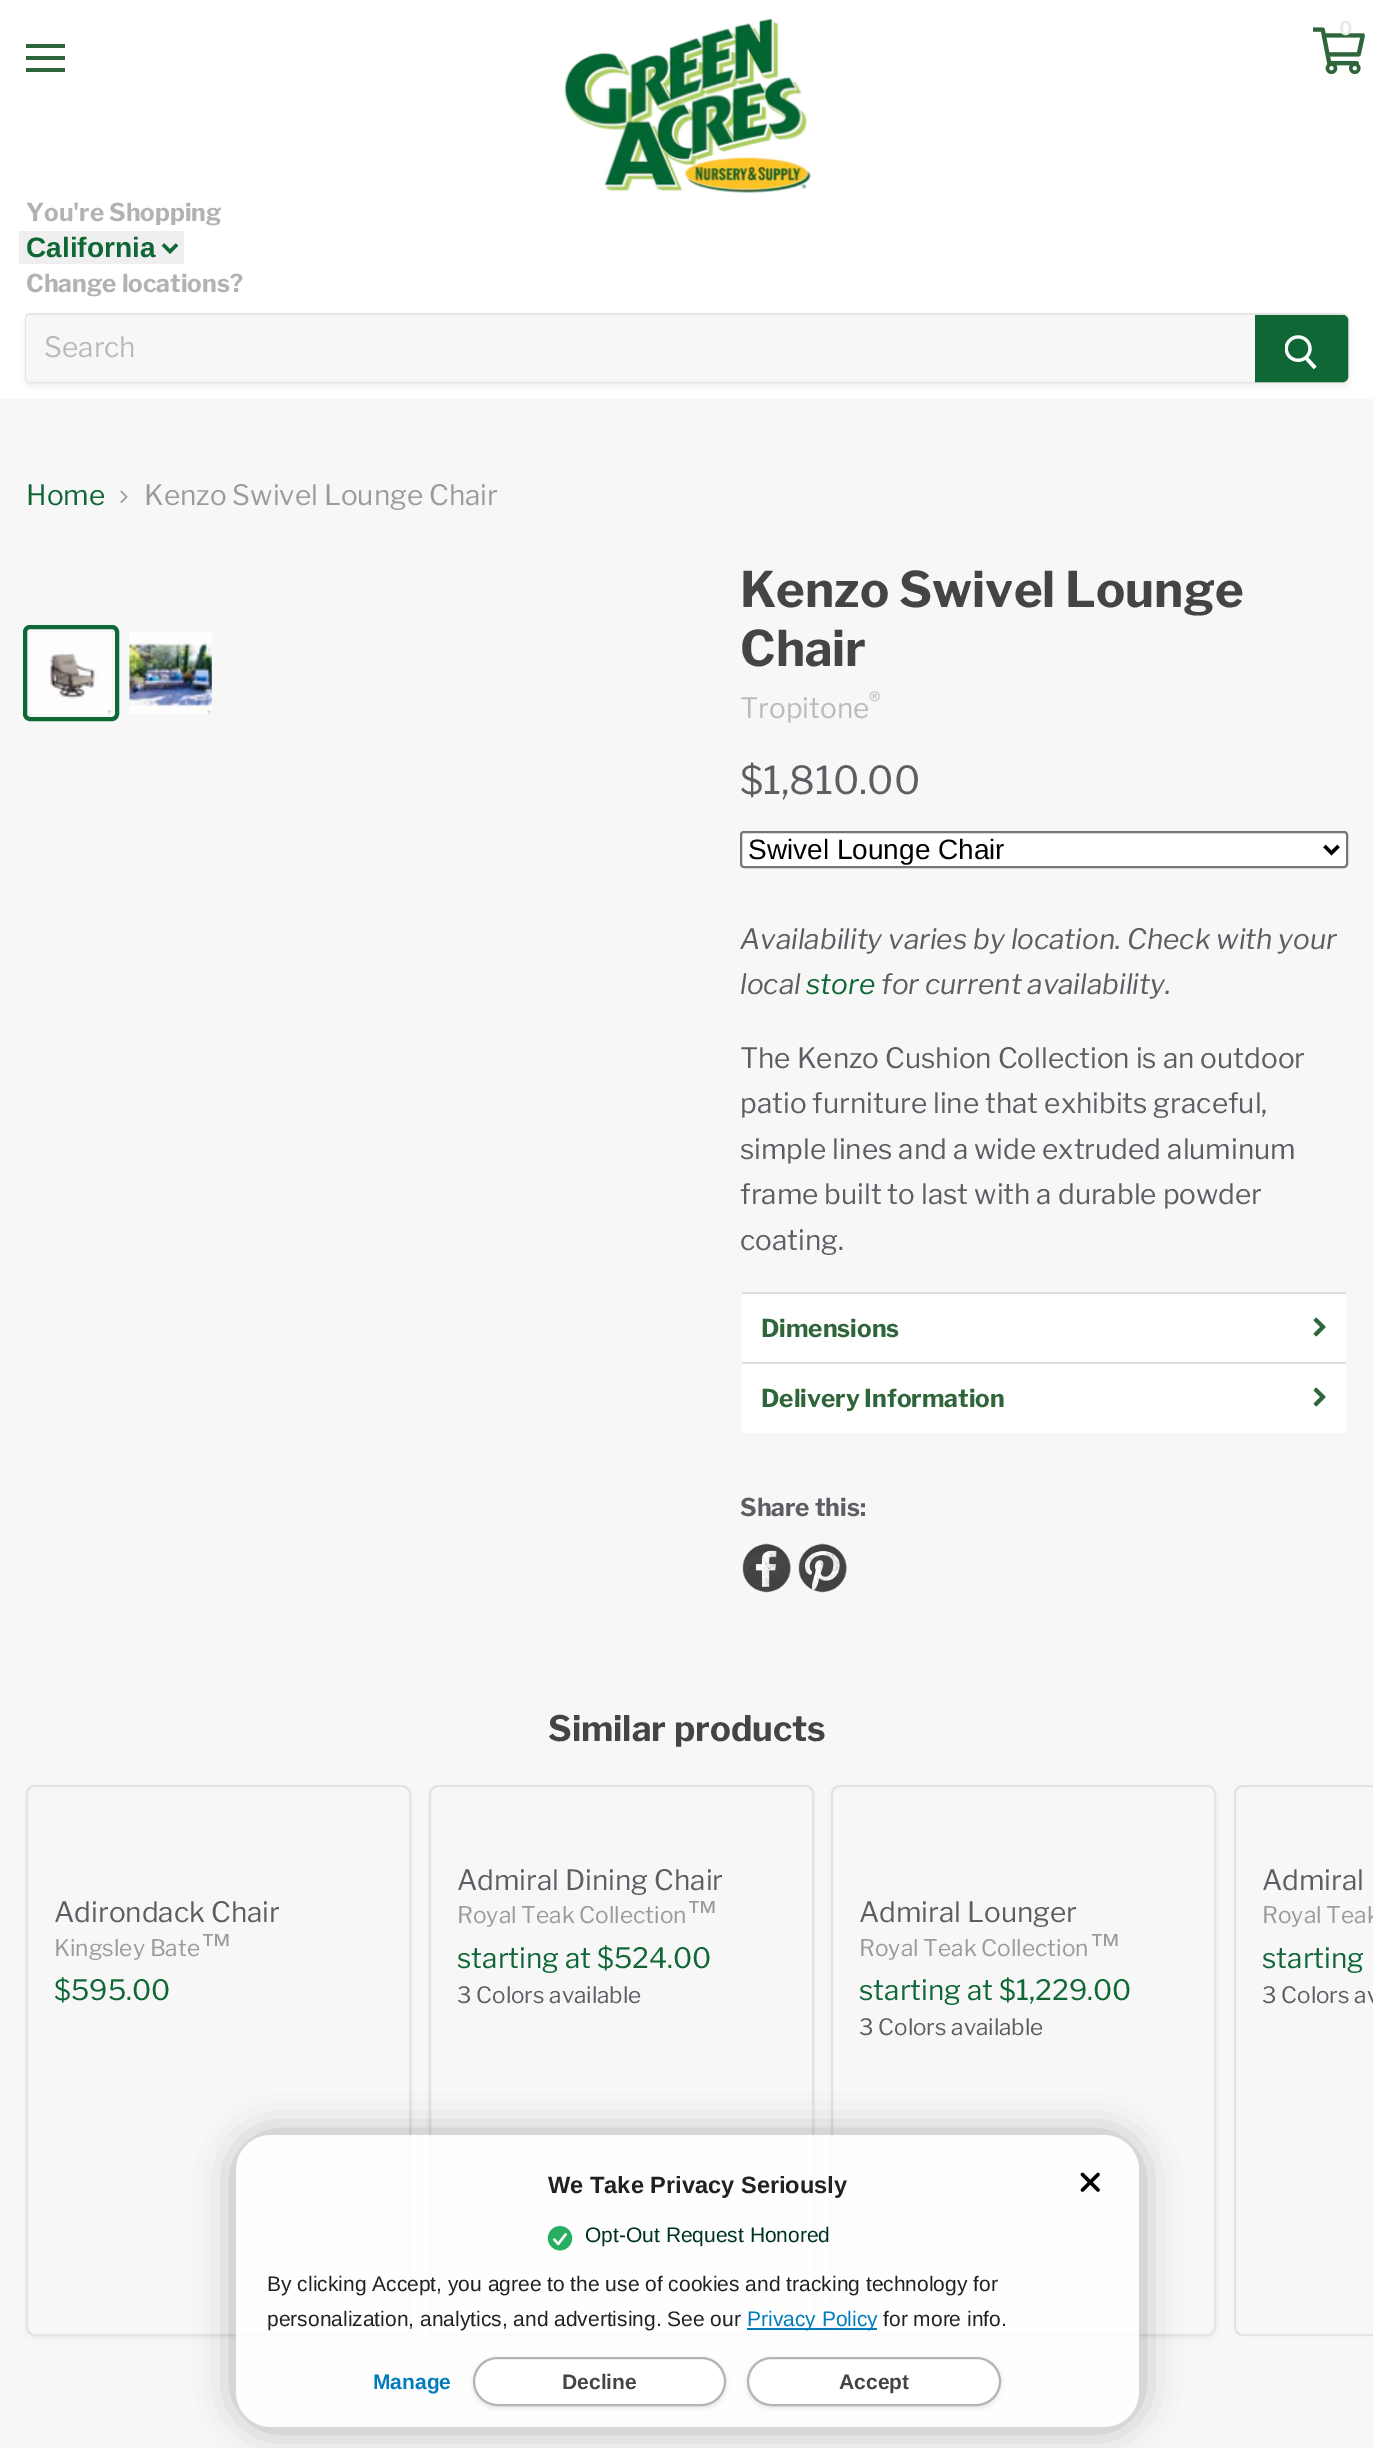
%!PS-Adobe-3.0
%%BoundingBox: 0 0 1373 2448
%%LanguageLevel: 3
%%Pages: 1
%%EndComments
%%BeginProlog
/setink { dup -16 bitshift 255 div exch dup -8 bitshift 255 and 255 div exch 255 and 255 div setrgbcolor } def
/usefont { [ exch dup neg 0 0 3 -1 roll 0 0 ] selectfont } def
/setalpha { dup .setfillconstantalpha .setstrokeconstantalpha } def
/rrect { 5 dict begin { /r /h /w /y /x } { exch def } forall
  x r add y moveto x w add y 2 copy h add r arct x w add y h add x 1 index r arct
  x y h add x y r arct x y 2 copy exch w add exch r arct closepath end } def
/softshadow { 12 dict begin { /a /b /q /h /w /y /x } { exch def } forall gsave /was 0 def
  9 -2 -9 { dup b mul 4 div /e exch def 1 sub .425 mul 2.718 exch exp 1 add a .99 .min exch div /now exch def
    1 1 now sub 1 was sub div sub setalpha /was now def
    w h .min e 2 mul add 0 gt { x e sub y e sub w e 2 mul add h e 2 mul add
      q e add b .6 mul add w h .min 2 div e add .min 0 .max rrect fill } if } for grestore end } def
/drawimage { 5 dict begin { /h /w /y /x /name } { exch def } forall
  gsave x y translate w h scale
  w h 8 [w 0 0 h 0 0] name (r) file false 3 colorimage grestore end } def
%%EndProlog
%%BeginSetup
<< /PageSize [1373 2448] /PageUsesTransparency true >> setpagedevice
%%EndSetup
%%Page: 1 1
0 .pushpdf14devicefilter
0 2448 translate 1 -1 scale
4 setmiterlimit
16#F7F7F7 setink
0 0 1373 2448 rectfill
16#FFFFFF setink
0 0 1373 399 rectfill
(img1.raw) 1313 27 52 48 drawimage
/LibreFranklin-Bold 19 usefont
16#E6EDE8 setink
1339 35 moveto (0) show
[
    [26 44 39 4 16#2F653A]
    [26 56 39 4 16#2F653A]
    [26 68 39 4 16#2F653A]
] { aload pop setink rectfill } forall
(img2.raw) 564 18 247 175 drawimage
/LibreFranklin-Bold 24.5 usefont
16#B2B2B2 setink
26 221 moveto (You're Shopping) show
16#EFEFEF setink
19 231 165 33 rectfill
16#0F6735 setink
3.5 setlinewidth
163 244.5 moveto 170 251.5 lineto 177 244.5 lineto stroke
/LiberationSans-Bold 28 usefont
26 257 moveto (California) show
/LibreFranklin-Bold 24.5 usefont
16#B2B2B2 setink
26 292 moveto (Change locations?) show
16#7B7B7B setink
25 317 1324 70 7 2.5 0.11 softshadow
16#E5E5E5 setink
2 setlinewidth
30 314 moveto 1342 314 lineto 1345.5 314 1348 316.5 1348 320 curveto 1348 376 lineto 1348 379.5 1345.5 382 1342 382 curveto 30 382 lineto 28 382 26 380 26 378 curveto 26 318 lineto 26 316 28 314 30 314 curveto closepath stroke
16#F7F7F7 setink
31 315 moveto 1255 315 lineto 1255 382 lineto 31 382 lineto 28 382 26 380 26 377 curveto 26 320 lineto 26 317 28 315 31 315 curveto closepath fill
/LibreFranklin-Regular 28 usefont
16#B9BABC setink
44 357 moveto (Search) show
16#0F6735 setink
1256 316 moveto 1343 316 lineto 1345 316 1347 318 1347 320 curveto 1347 377 lineto 1347 379 1345 381 1343 381 curveto 1256 381 lineto closepath gsave fill grestore
stroke
(img3.raw) 1285 335 32 35 drawimage
26 505 moveto (Home) show
(img4.raw) 120 490 8 14 drawimage
16#9A9B9E setink
144 505 moveto (Kenzo Swivel Lounge Chair) show
16#0F6735 setink
4 setlinewidth
25 627 92 92 5 rrect stroke
(img5.raw) 30 632 82 82 drawimage
(img6.raw) 129 632 83 82 drawimage
/LibreFranklin-Bold 49 usefont
16#444444 setink
740 607 moveto (Kenzo Swivel Lounge) show
740 666 moveto (Chair) show
/LibreFranklin-Regular 28 usefont
16#B9BABC setink
740 718 moveto (Tropitone) show
/LibreFranklin-Regular 21 usefont
869 707 moveto (®) show
/LibreFranklin-Regular 38.5 usefont
16#5C5E63 setink
740 794 moveto ($1,810.00) show
16#FFFFFF setink
741 832 606 35 3 rrect gsave fill grestore
16#767676 setink
2 setlinewidth
stroke
16#000000 setink
3.5 setlinewidth
1324.5 846 moveto 1331.5 853 lineto 1338.5 846 lineto stroke
/LiberationSans-Regular 28 usefont
748 859 moveto (Swivel Lounge Chair) show
/LibreFranklin-Italic 28 usefont
16#5C5E63 setink
740 949 moveto (Availability varies by location. Check with your) show
740 994 moveto (local) show
16#0F6735 setink
806 994 moveto (store) show
16#5C5E63 setink
881 994 moveto (for current availability.) show
/LibreFranklin-Regular 28 usefont
[
    [(The Kenzo Cushion Collection is an outdoor) 740 1068]
    [(patio furniture line that exhibits graceful,) 740 1113]
    [(simple lines and a wide extruded aluminum) 740 1159]
    [(frame built to last with a durable powder) 740 1204]
    [(coating.) 740 1250]
] { aload pop moveto show } forall
[
    [742 1294 604 68 16#FFFFFF]
    [740 1292 608 2 16#DDDDDD]
    [1346 1292 2 2 16#F7F7F7]
    [740 1292 2 2 16#F7F7F7]
] { aload pop setink rectfill } forall
/LibreFranklin-Bold 24.5 usefont
16#2F653A setink
761 1337 moveto (Dimensions) show
(img7.raw) 1313 1317 13 20 drawimage
[
    [742 1364 604 69 16#FFFFFF]
    [740 1362 608 2 16#DDDDDD]
    [1346 1362 2 2 16#F7F7F7]
    [740 1362 2 2 16#F7F7F7]
] { aload pop setink rectfill } forall
16#2F653A setink
761 1407 moveto (Delivery Information) show
(img7.raw) 1313 1387 13 20 drawimage
16#5C5E63 setink
740 1516 moveto (Share this:) show
(img8.raw) 742 1543 49 50 drawimage
(img9.raw) 798 1543 49 50 drawimage
/LibreFranklin-Bold 35 usefont
16#444444 setink
548 1741 moveto (Similar products) show
16#7B7B7B setink
26 1787 385 551 9 3.5 0.11 softshadow
16#F7F7F7 setink
27 1786 383 549 8 rrect gsave fill grestore
16#E3E3E3 setink
2 setlinewidth
stroke
/LibreFranklin-Regular 28 usefont
16#5C5E63 setink
54 1922 moveto (Adirondack Chair) show
/LibreFranklin-Regular 22.75 usefont
16#9A9B9E setink
54 1956 moveto (Kingsley Bate) show
/LiberationSans-Regular 32 usefont
200 1956 moveto (™) show
/LibreFranklin-Regular 28 usefont
16#0F6735 setink
54 2000 moveto ($595.00) show
16#7B7B7B setink
429 1787 385 551 9 3.5 0.11 softshadow
16#F7F7F7 setink
430 1786 383 549 8 rrect gsave fill grestore
16#E3E3E3 setink
stroke
16#5C5E63 setink
457 1890 moveto (Admiral Dining Chair) show
/LibreFranklin-Regular 22.75 usefont
16#9A9B9E setink
457 1923 moveto (Royal Teak Collection) show
/LiberationSans-Regular 32 usefont
686 1923 moveto (™) show
/LibreFranklin-Regular 28 usefont
16#0F6735 setink
457 1968 moveto (starting at $524.00) show
/LibreFranklin-Regular 22.5 usefont
16#5C5E63 setink
457 2003 moveto (3 Colors available) show
16#7B7B7B setink
831 1787 385 551 9 3.5 0.11 softshadow
16#F7F7F7 setink
832 1786 383 549 8 rrect gsave fill grestore
16#E3E3E3 setink
stroke
/LibreFranklin-Regular 28 usefont
16#5C5E63 setink
859 1922 moveto (Admiral Lounger) show
/LibreFranklin-Regular 22.75 usefont
16#9A9B9E setink
859 1956 moveto (Royal Teak Collection) show
/LiberationSans-Regular 32 usefont
1089 1956 moveto (™) show
/LibreFranklin-Regular 28 usefont
16#0F6735 setink
859 2000 moveto (starting at $1,229.00) show
/LibreFranklin-Regular 22.5 usefont
16#5C5E63 setink
859 2035 moveto (3 Colors available) show
16#E3E3E3 setink
1235 1786 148 549 8 rrect stroke
/LibreFranklin-Regular 28 usefont
16#5C5E63 setink
1262 1890 moveto (Admiral) show
/LibreFranklin-Regular 22.75 usefont
16#9A9B9E setink
1262 1923 moveto (Royal Teak) show
/LibreFranklin-Regular 28 usefont
16#0F6735 setink
1262 1968 moveto (starting) show
/LibreFranklin-Regular 22.5 usefont
16#5C5E63 setink
1262 2003 moveto (3 Colors av) show
gsave
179 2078 moveto 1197 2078 lineto 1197 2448 lineto 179 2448 lineto closepath 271 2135 moveto 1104 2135 lineto 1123.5 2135 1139 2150.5 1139 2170 curveto 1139 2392 lineto 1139 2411.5 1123.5 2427 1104 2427 curveto 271 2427 lineto 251.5 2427 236 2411.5 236 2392 curveto 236 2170 lineto 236 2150.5 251.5 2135 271 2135 curveto closepath eoclip newpath
16#000000 setink
233 2132 910 299 39 17.5 0.25 softshadow
grestore
0.85 setalpha
16#FFFFFF setink
236 2135 903 292 35 rrect fill
/LiberationSans-Bold 23.6 usefont
1 setalpha
16#212121 setink
548 2193 moveto (We Take Privacy Seriously) show
16#000000 setink
3.5 setlinewidth
1 setlinecap
1 setlinejoin
1098 2174.5 moveto 1082.5 2190 lineto 1082.5 2174.5 moveto 1098 2190 lineto stroke
(img10.raw) 547 2226 26 25 drawimage
/LiberationSans-Regular 21 usefont
16#00331F setink
585 2242 moveto (Opt-Out Request Honored) show
16#212121 setink
267 2291 moveto (By clicking Accept, you agree to the use of cookies and tracking technology for) show
267 2326 moveto (personalization, analytics, and advertising. See our) show
16#007BBD setink
747 2328 130 2 rectfill
747 2326 moveto (Privacy Policy) show
16#212121 setink
883 2326 moveto (for more info.) show
/LiberationSans-Bold 21 usefont
16#007BBD setink
373 2389 moveto (Manage) show
16#000000 setink
473 2359 253 49 24.5 2.5 0.1 softshadow
16#FFFFFF setink
474 2358 251 47 23.5 rrect gsave fill grestore
16#B4B4B4 setink
2 setlinewidth
0 setlinecap
0 setlinejoin
stroke
16#444444 setink
562 2389 moveto (Decline) show
16#000000 setink
747 2359 254 49 24.5 2.5 0.1 softshadow
16#FFFFFF setink
748 2358 252 47 23.5 rrect gsave fill grestore
16#B4B4B4 setink
stroke
16#444444 setink
839 2389 moveto (Accept) show
.poppdf14devicefilter showpage
%%EOF
